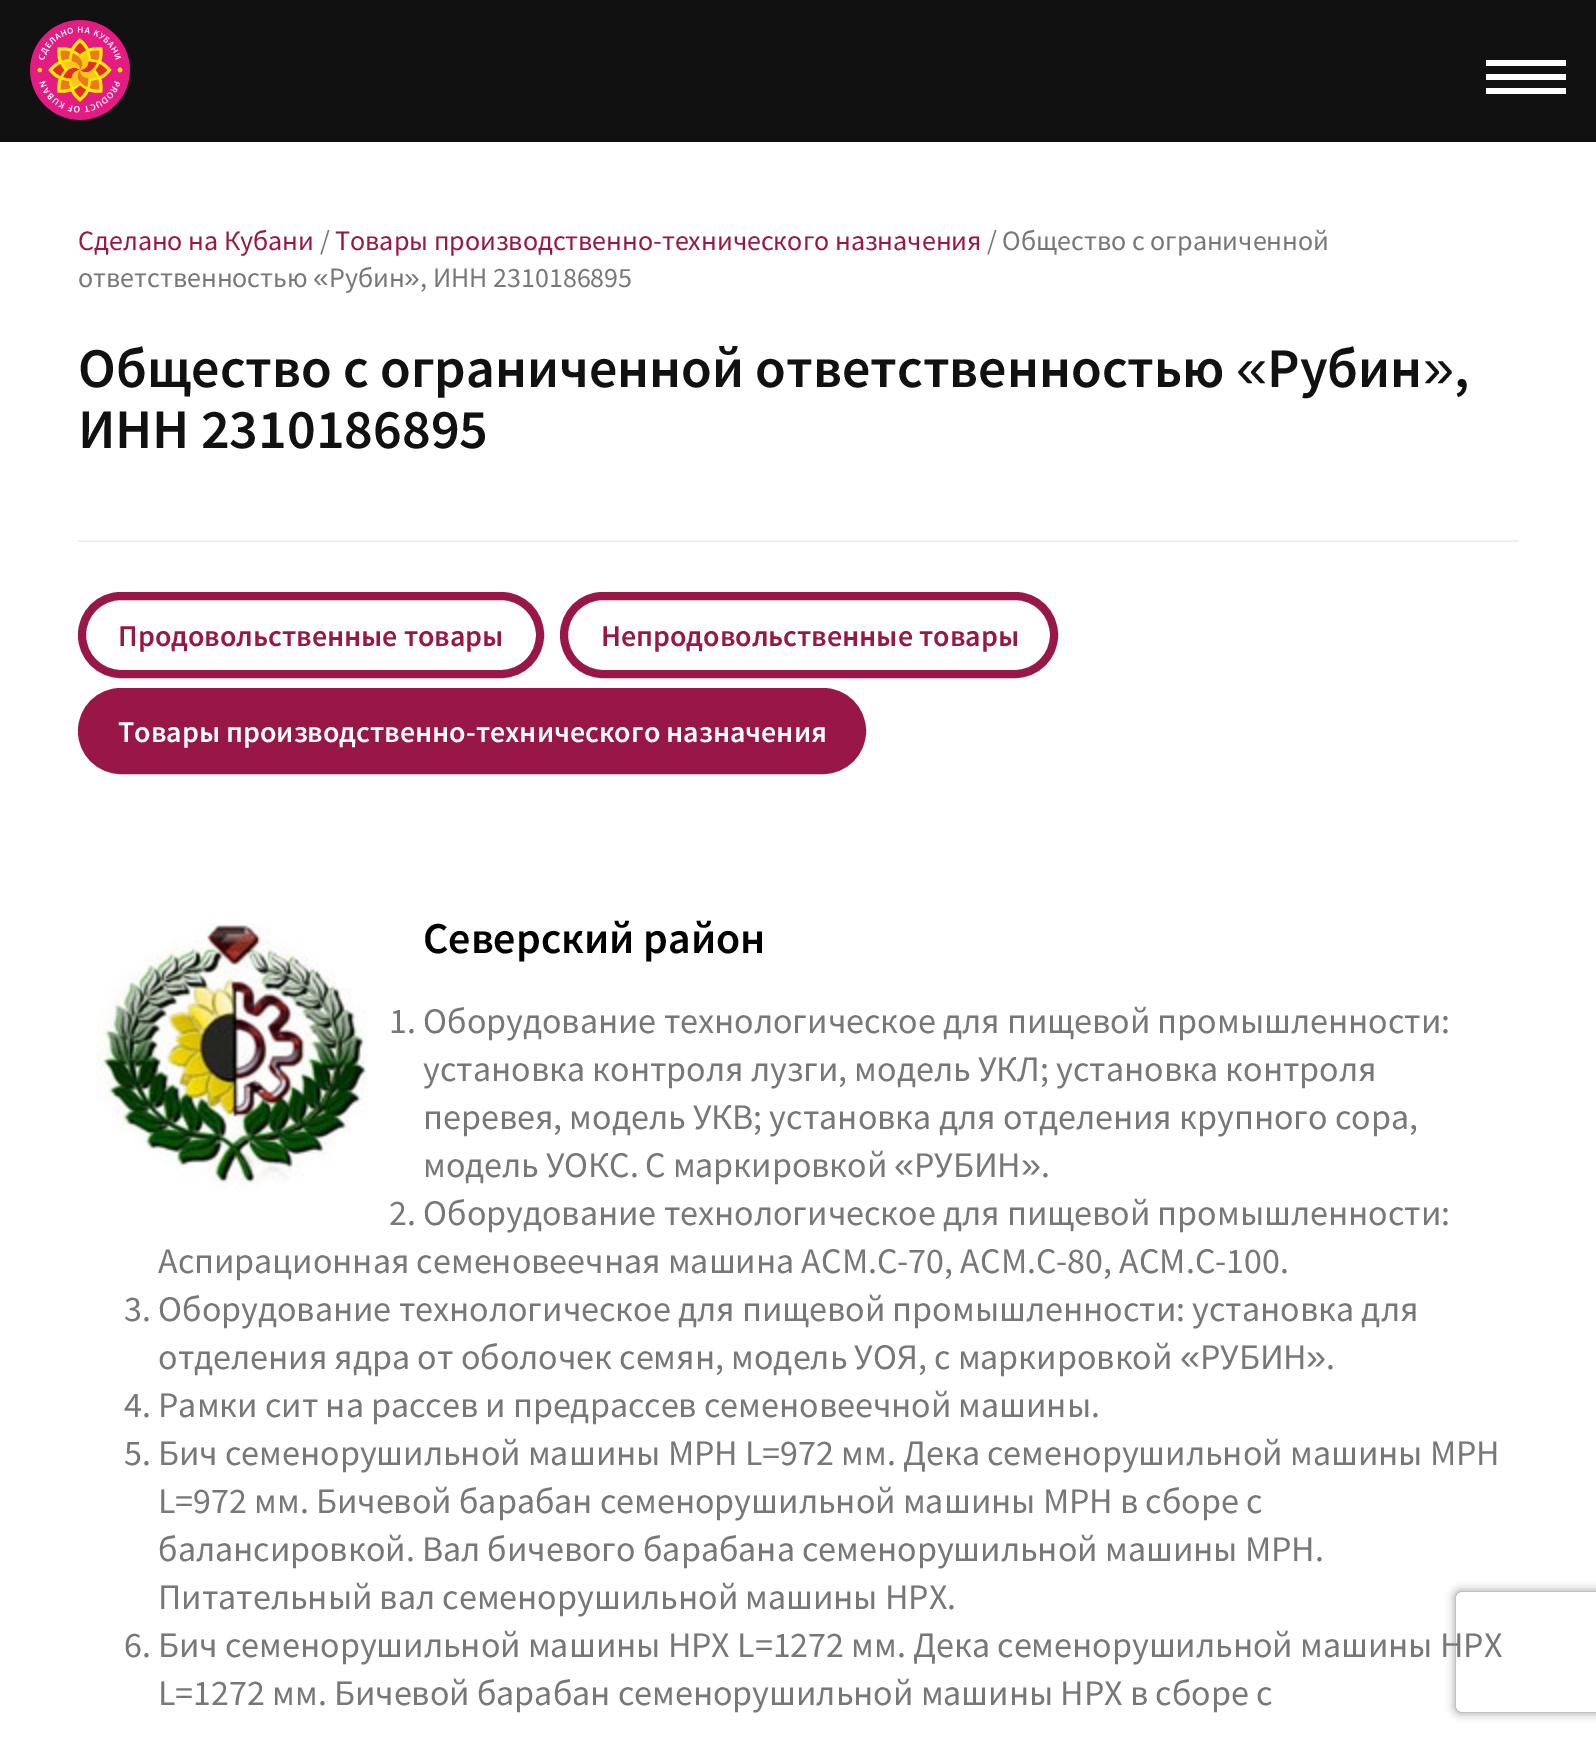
%!PS-Adobe-3.0
%%BoundingBox: 0 0 1596 1739
%%LanguageLevel: 3
%%Pages: 1
%%EndComments
%%BeginProlog
/setink { dup -16 bitshift 255 div exch dup -8 bitshift 255 and 255 div exch 255 and 255 div setrgbcolor } def
/usefont { [ exch dup neg 0 0 3 -1 roll 0 0 ] selectfont } def
/setalpha { dup .setfillconstantalpha .setstrokeconstantalpha } def
/rrect { 5 dict begin { /r /h /w /y /x } { exch def } forall
  x r add y moveto x w add y 2 copy h add r arct x w add y h add x 1 index r arct
  x y h add x y r arct x y 2 copy exch w add exch r arct closepath end } def
/softshadow { 12 dict begin { /a /b /q /h /w /y /x } { exch def } forall gsave /was 0 def
  9 -2 -9 { dup b mul 4 div /e exch def 1 sub .425 mul 2.718 exch exp 1 add a .99 .min exch div /now exch def
    1 1 now sub 1 was sub div sub setalpha /was now def
    w h .min e 2 mul add 0 gt { x e sub y e sub w e 2 mul add h e 2 mul add
      q e add b .6 mul add w h .min 2 div e add .min 0 .max rrect fill } if } for grestore end } def
/drawimage { 5 dict begin { /h /w /y /x /name } { exch def } forall
  gsave x y translate w h scale
  w h 8 [w 0 0 h 0 0] name (r) file false 3 colorimage grestore end } def
%%EndProlog
%%BeginSetup
<< /PageSize [1596 1739] /PageUsesTransparency true >> setpagedevice
%%EndSetup
%%Page: 1 1
0 .pushpdf14devicefilter
0 1739 translate 1 -1 scale
4 setmiterlimit
16#FFFFFF setink
0 0 1596 1739 rectfill
16#111111 setink
0 0 1596 142 rectfill
(img1.raw) 30 20 100 100 drawimage
[
    [1486 60 80 6 16#FFFFFF]
    [1486 74 80 6 16#FFFFFF]
    [1486 88 80 6 16#FFFFFF]
] { aload pop setink rectfill } forall
/SourceSansPro-Regular 28 usefont
16#991747 setink
78 250 moveto (Сделано на Кубани) show
16#777777 setink
320 250 moveto (/) show
16#991747 setink
335 250 moveto (Товары производственно-технического назначения) show
16#777777 setink
987 250 moveto (/ Общество с ограниченной) show
78 287 moveto (ответственностью) show
/LiberationSans-Regular 28 usefont
313 287 moveto («) show
/SourceSansPro-Regular 28 usefont
329 287 moveto (Рубин) show
/LiberationSans-Regular 28 usefont
404 287 moveto (») show
/SourceSansPro-Regular 28 usefont
420 287 moveto (, ИНН 2310186895) show
/SourceSansPro-SemiBold 56 usefont
16#111111 setink
78 387 moveto (Общество с ограниченной ответственностью) show
/LiberationSans-Regular 56 usefont
1236 387 moveto («) show
/SourceSansPro-SemiBold 56 usefont
1267 387 moveto (Рубин) show
/LiberationSans-Regular 56 usefont
1423 387 moveto (») show
/SourceSansPro-SemiBold 56 usefont
1454 387 moveto (,) show
78 448 moveto (ИНН 2310186895) show
16#EEEEEE setink
78 540 1440 2 rectfill
16#991747 setink
8 setlinewidth
82 596 458 78 39 rrect stroke
/SourceSansPro-SemiBold 30 usefont
118 646 moveto (Продовольственные товары) show
564 596 490 78 39 rrect stroke
601 646 moveto (Непродовольственные товары) show
82 692 780 78 39 rrect gsave fill grestore
stroke
16#FFFFFF setink
118 742 moveto (Товары производственно-технического назначения) show
/SourceSansPro-SemiBold 44 usefont
16#000000 setink
423 953 moveto (Северский район) show
/SourceSansPro-Regular 36 usefont
16#777777 setink
[
    [(1. Оборудование технологическое для пищевой промышленности:) 389 1033]
    [(установка контроля лузги, модель УКЛ; установка контроля) 423 1081]
    [(перевея, модель УКВ; установка для отделения крупного сора,) 423 1129]
] { aload pop moveto show } forall
423 1177 moveto -0.5 0 32 (модель УОКС. С маркировкой) widthshow
/LiberationSans-Regular 36 usefont
894 1177 moveto («) show
/SourceSansPro-Regular 36 usefont
914 1177 moveto (РУБИН) show
/LiberationSans-Regular 36 usefont
1021 1177 moveto (») show
/SourceSansPro-Regular 36 usefont
[
    [(.) 1041 1177]
    [(2. Оборудование технологическое для пищевой промышленности:) 389 1225]
    [(Аспирационная семеновеечная машина АСМ.С-70, АСМ.С-80, АСМ.С-100.) 158 1273]
    [(3. Оборудование технологическое для пищевой промышленности: установка для) 124 1321]
    [(отделения ядра от оболочек семян, модель УОЯ, с маркировкой) 158 1369]
] { aload pop moveto show } forall
/LiberationSans-Regular 36 usefont
1180 1369 moveto («) show
/SourceSansPro-Regular 36 usefont
1200 1369 moveto (РУБИН) show
/LiberationSans-Regular 36 usefont
1306 1369 moveto (») show
/SourceSansPro-Regular 36 usefont
[
    [(.) 1326 1369]
    [(4. Рамки сит на рассев и предрассев семеновеечной машины.) 124 1417]
    [(5. Бич семенорушильной машины MPH L=972 мм. Дека семенорушильной машины MPH) 124 1465]
    [(L=972 мм. Бичевой барабан семенорушильной машины MPH в сборе с) 158 1513]
    [(балансировкой. Вал бичевого барабана семенорушильной машины MPH.) 158 1561]
    [(Питательный вал семенорушильной машины HРХ.) 158 1609]
    [(6. Бич семенорушильной машины HPX L=1272 мм. Дека семенорушильной машины HPX) 124 1657]
    [(L=1272 мм. Бичевой барабан семенорушильной машины HPX в сборе с) 158 1705]
] { aload pop moveto show } forall
(img2.raw) 96 923 272 267 drawimage
gsave
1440 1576 moveto 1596 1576 lineto 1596 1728 lineto 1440 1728 lineto closepath 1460 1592 moveto 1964 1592 lineto 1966 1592 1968 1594 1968 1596 curveto 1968 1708 lineto 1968 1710 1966 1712 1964 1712 curveto 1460 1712 lineto 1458 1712 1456 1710 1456 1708 curveto 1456 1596 lineto 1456 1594 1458 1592 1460 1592 curveto closepath eoclip newpath
16#808080 setink
1456 1592 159 120 4 5 1 softshadow
grestore
.poppdf14devicefilter showpage
%%EOF
